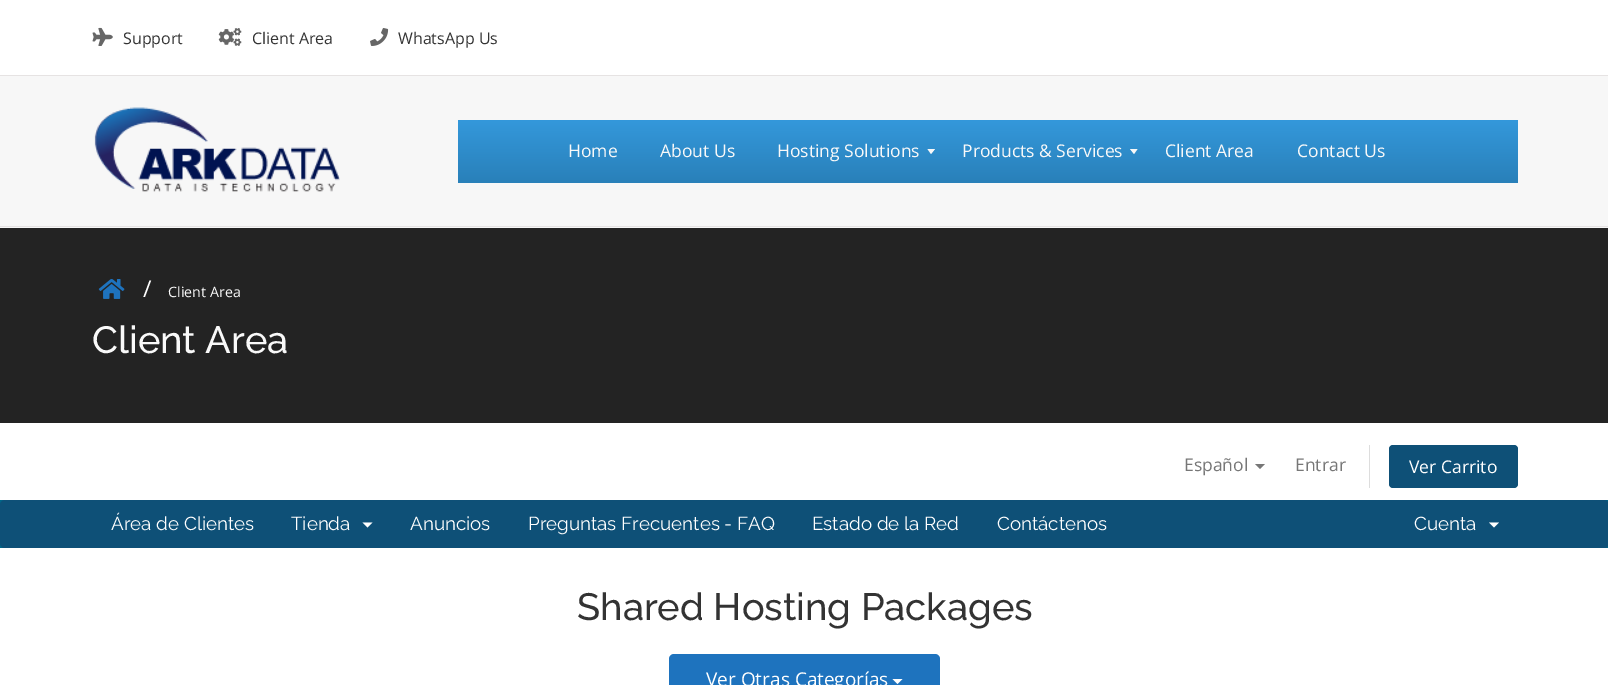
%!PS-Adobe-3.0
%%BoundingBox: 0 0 1608 685
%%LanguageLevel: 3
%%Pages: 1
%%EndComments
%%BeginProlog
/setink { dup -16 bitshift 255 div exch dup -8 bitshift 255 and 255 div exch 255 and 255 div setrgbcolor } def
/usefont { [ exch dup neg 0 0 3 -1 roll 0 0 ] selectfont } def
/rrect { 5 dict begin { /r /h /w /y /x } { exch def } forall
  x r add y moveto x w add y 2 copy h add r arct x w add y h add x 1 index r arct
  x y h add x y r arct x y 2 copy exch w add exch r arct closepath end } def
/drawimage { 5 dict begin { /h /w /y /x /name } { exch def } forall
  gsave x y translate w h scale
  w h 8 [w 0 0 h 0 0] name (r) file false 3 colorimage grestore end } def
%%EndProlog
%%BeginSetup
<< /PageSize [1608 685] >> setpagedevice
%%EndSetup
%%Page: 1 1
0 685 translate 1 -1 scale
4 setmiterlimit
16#FFFFFF setink
0 0 1608 685 rectfill
(img1.raw) 92 27 21 19 drawimage
/OpenSans-Regular 16 usefont
16#333333 setink
123 44 moveto (Support) show
(img2.raw) 218 28 24 18 drawimage
252 44 moveto (Client Area) show
(img3.raw) 370 28 19 18 drawimage
398 44 moveto (WhatsApp Us) show
[
    [0 76 1608 152 16#F7F7F7]
    [0 75 1608 1 16#E6E3E3]
    [0 226 1608 1 16#E6E3E3]
] { aload pop setink rectfill } forall
(img4.raw) 94 107 246 85 drawimage
gsave 458 120 moveto 1518 120 lineto 1518 183 lineto 458 183 lineto closepath clip newpath
<< /ShadingType 2 /ColorSpace /DeviceRGB /Coords [988 120 988 183] /Extend [true true] /Function << /FunctionType 2 /Domain [0 1] /C0 [0.204 0.596 0.859] /C1 [0.161 0.502 0.725] /N 1 >> >> shfill grestore
/OpenSans-Regular 17.5 usefont
16#F9F9F9 setink
[
    [(Home) 568 157]
    [(About Us) 660 157]
    [(Hosting Solutions) 777 157]
] { aload pop moveto show } forall
16#F8F8F8 setink
927.5 149 moveto 935 149 lineto 931 154 lineto closepath fill
16#F9F9F9 setink
962 157 moveto (Products & Services) show
16#F8F8F8 setink
1130 149 moveto 1137.5 149 lineto 1134 154 lineto closepath fill
16#F9F9F9 setink
1165 157 moveto (Client Area) show
1297 157 moveto (Contact Us) show
16#232323 setink
0 228 1608 195 rectfill
(img5.raw) 98 279 27 20 drawimage
/OpenSans-Regular 23 usefont
16#FFFFFF setink
143 297 moveto (/) show
/OpenSans-Regular 14.25 usefont
16#F9F9F9 setink
168 297 moveto (Client Area) show
/Raleway-Medium 38 usefont
92 353 moveto (Client Area) show
/OpenSans-Regular 17.5 usefont
16#777777 setink
1184 471 moveto (Español) show
1255 464 moveto 1265 464 lineto 1260 469 lineto closepath fill
1295 471 moveto (Entrar) show
16#DDDDDD setink
1369 445 1 43 rectfill
16#0E5077 setink
1389 445 129 43 4 rrect fill
16#FFFFFF setink
1409 473 moveto (Ver Carrito) show
16#006687 setink
0 500 1608 48 rectfill
16#0E5077 setink
0 500 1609 48 5 rrect fill
/Raleway-Regular 18.75 usefont
16#FFFFFF setink
111 530 moveto (Área de Clientes) show
291 530 moveto (Tienda) show
362.5 522.5 moveto 372.5 522.5 lineto 367.5 527.5 lineto closepath fill
[
    [(Anuncios) 410 530]
    [(Preguntas Frecuentes - FAQ) 528 530]
    [(Estado de la Red) 812 530]
    [(Contáctenos) 997 530]
    [(Cuenta) 1414 530]
] { aload pop moveto show } forall
1489 522.5 moveto 1499 522.5 lineto 1494 527.5 lineto closepath fill
/Raleway-Medium 38 usefont
16#333333 setink
577 620 moveto (Shared Hosting Packages) show
16#1E73BE setink
669 654 271 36 5 rrect fill
/OpenSans-Regular 19 usefont
16#FFFFFF setink
706 686 moveto (Ver Otras Categorías) show
892.5 679 moveto 902.5 679 lineto 897.5 684 lineto closepath fill
showpage
%%EOF
